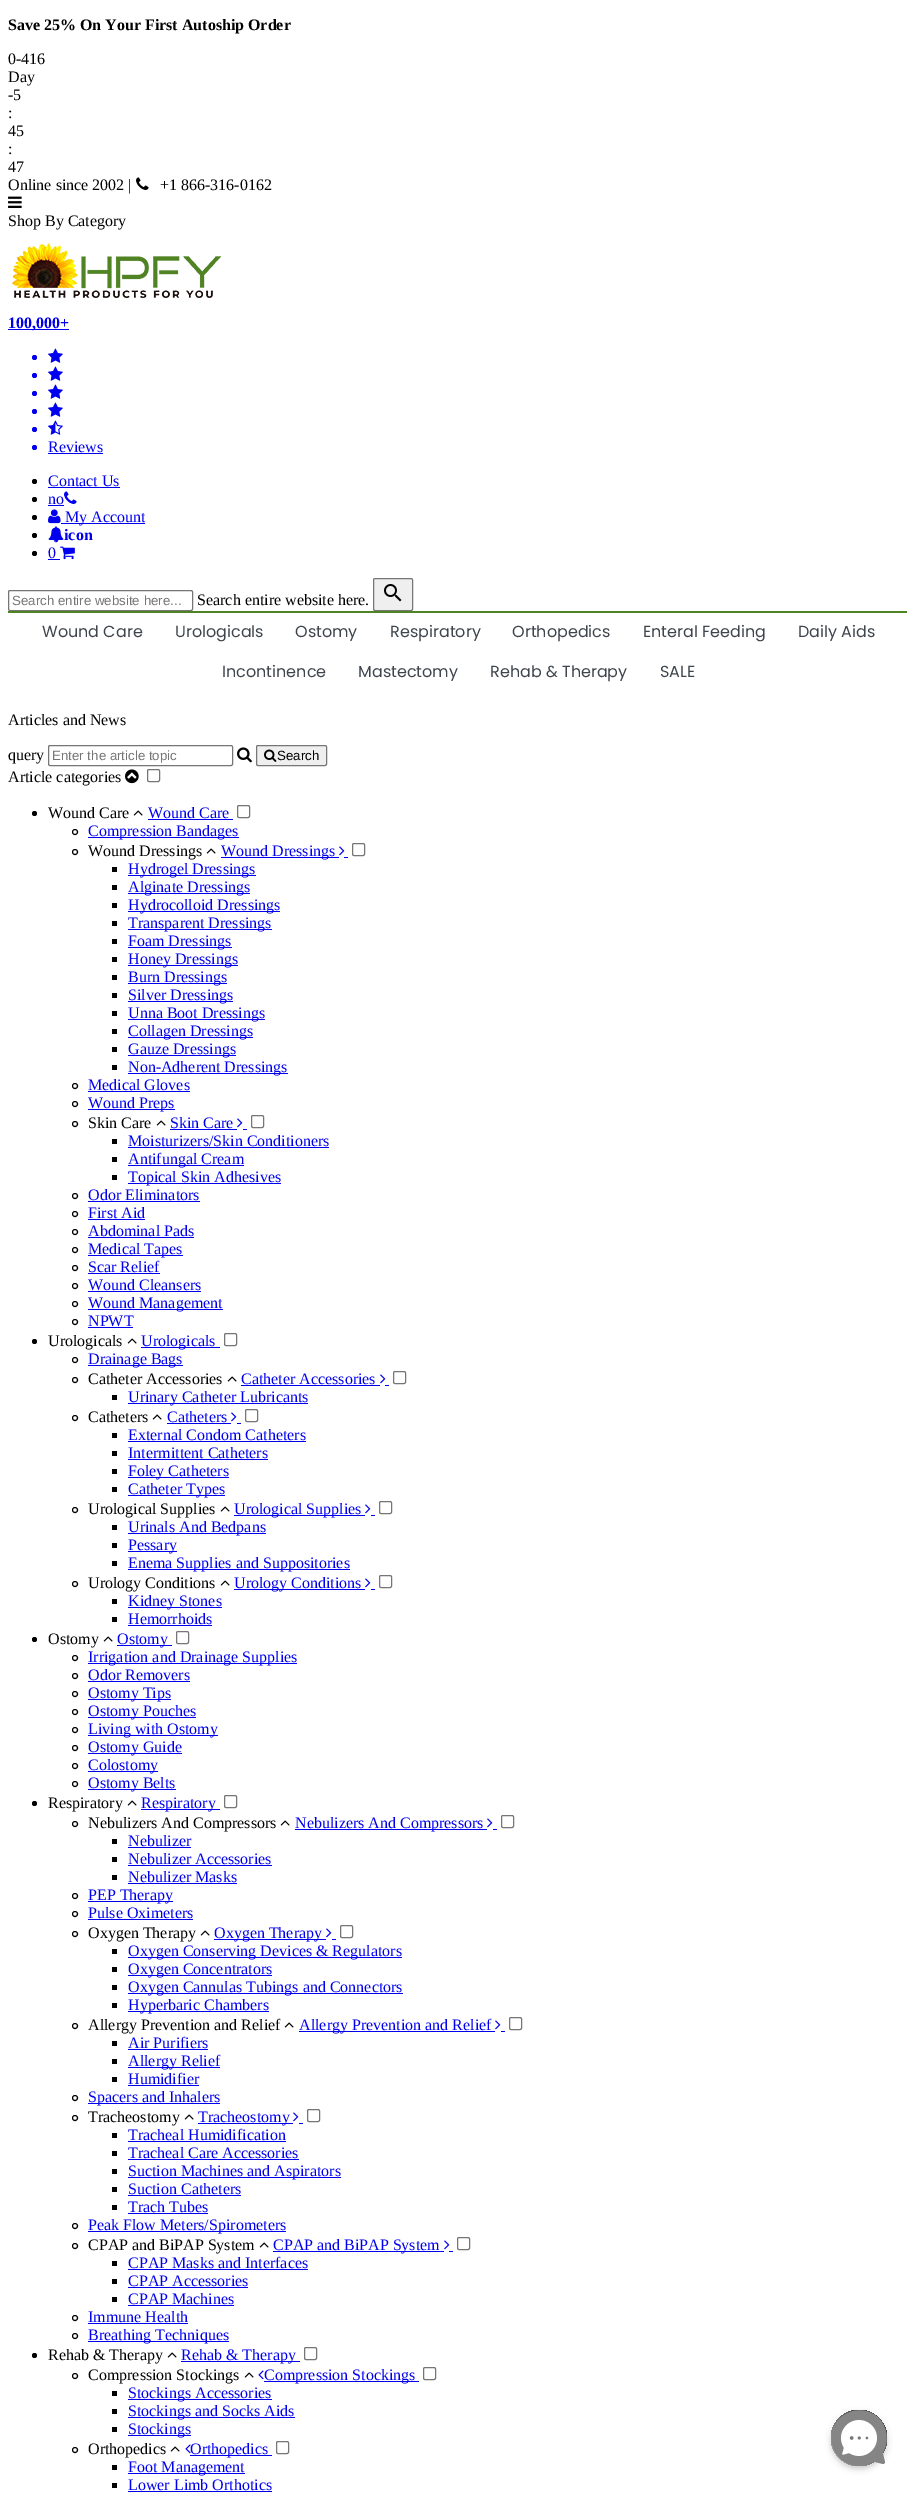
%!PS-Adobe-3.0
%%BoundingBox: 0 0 915 2494
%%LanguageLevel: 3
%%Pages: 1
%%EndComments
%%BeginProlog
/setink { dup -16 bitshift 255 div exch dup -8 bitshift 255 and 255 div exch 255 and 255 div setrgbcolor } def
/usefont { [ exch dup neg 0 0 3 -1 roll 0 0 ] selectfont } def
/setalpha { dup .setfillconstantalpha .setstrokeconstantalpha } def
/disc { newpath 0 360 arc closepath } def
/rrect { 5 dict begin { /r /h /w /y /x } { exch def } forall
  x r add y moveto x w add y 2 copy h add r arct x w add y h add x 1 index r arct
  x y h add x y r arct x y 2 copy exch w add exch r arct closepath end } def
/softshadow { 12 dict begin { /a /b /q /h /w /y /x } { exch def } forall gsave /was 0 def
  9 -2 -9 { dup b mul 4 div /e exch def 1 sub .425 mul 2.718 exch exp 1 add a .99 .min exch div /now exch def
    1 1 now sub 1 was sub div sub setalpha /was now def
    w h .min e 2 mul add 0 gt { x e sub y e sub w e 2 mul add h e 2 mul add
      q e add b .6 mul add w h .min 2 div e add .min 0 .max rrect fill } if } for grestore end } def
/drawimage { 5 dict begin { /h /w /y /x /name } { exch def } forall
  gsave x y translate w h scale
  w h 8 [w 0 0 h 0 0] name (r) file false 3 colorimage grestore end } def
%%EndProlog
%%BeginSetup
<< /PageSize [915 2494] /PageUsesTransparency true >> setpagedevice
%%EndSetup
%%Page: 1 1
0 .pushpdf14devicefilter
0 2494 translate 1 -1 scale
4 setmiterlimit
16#FFFFFF setink
0 0 915 2494 rectfill
/LiberationSerif-Bold 16 usefont
16#000000 setink
8 30 moveto (Save 25% On Your First Autoship Order) show
/LiberationSerif-Regular 16 usefont
[
    [(0-416) 8 64]
    [(Day) 8 82]
    [(-5) 8 100]
    [(:) 8 118]
    [(45) 8 136]
    [(:) 8 154]
    [(47) 8 172]
    [(Online since 2002 |) 8 190]
] { aload pop moveto show } forall
(img1.raw) 136 177 13 13 drawimage
160 190 moveto (+1 866-316-0162) show
(img2.raw) 8 196 14 12 drawimage
8 226 moveto (Shop By Category) show
(img3.raw) 12 243 209 55 drawimage
16#0000EE setink
8 329 61 1 rectfill
/LiberationSerif-Bold 16 usefont
8 328 moveto (100,000+) show
34.5 357.5 2.5 disc fill
(img4.raw) 48 348 15 15 drawimage
34.5 375.5 2.5 disc fill
(img4.raw) 48 366 15 15 drawimage
34.5 393.5 2.5 disc fill
(img4.raw) 48 384 15 15 drawimage
34.5 411.5 2.5 disc fill
(img4.raw) 48 402 15 15 drawimage
34.5 429.5 2.5 disc fill
(img5.raw) 48 420 15 15 drawimage
34.5 447.5 2.5 disc fill
/LiberationSerif-Regular 16 usefont
48 452 moveto (Reviews) show
48 453 55 1 rectfill
16#000000 setink
34.5 481.5 2.5 disc fill
16#0000EE setink
48 486 moveto (Contact Us) show
48 487 72 1 rectfill
16#000000 setink
34.5 499.5 2.5 disc fill
16#0000EE setink
48 504 moveto (no) show
48 505 16 1 rectfill
(img6.raw) 64 491 13 13 drawimage
16#000000 setink
34.5 517.5 2.5 disc fill
(img7.raw) 48 509 13 15 drawimage
16#0000EE setink
61 523 84 1 rectfill
65 522 moveto (My Account) show
16#000000 setink
34.5 535.5 2.5 disc fill
(img8.raw) 48 526 16 17 drawimage
/LiberationSerif-Bold 16 usefont
16#0000EE setink
64 540 moveto (icon) show
16#000000 setink
34.5 553.5 2.5 disc fill
/LiberationSerif-Regular 16 usefont
16#0000EE setink
48 558 moveto (0) show
48 559 12 1 rectfill
(img9.raw) 60 546 15 14 drawimage
16#767676 setink
8.5 590.5 184 20 1.5 rrect stroke
/LiberationSans-Regular 13.3 usefont
16#757575 setink
12 605 moveto (Search entire website here...) show
/LiberationSerif-Regular 16 usefont
16#000000 setink
197 605 moveto (Search entire website here.) show
16#EFEFEF setink
373.5 578.5 39 32 1.5 rrect gsave fill grestore
16#767676 setink
stroke
(img10.raw) 384 584 18 18 drawimage
16#4F8324 setink
8 611 899 2 rectfill
/Poppins-Regular 16 usefont
16#3E454C setink
[
    [(Wound Care) 42 637]
    [(Urologicals) 175 637]
    [(Ostomy) 295 637]
    [(Respiratory) 390 637]
    [(Orthopedics) 512 637]
    [(Enteral Feeding) 643 637]
    [(Daily Aids) 798 637]
    [(Incontinence) 222 677]
    [(Mastectomy) 358 677]
    [(Rehab & Therapy) 490 677]
    [(SALE) 660 677]
] { aload pop moveto show } forall
/LiberationSerif-Regular 16 usefont
16#000000 setink
8 725 moveto (Articles and News) show
8 760 moveto (query) show
16#767676 setink
48.5 745.5 184 20 1.5 rrect stroke
/LiberationSans-Regular 13.3 usefont
16#757575 setink
52 760 moveto (Enter the article topic) show
(img11.raw) 237 747 15 16 drawimage
16#EFEFEF setink
256.5 745.5 70 20 1.5 rrect gsave fill grestore
16#767676 setink
stroke
(img12.raw) 264 749 13 13 drawimage
16#000000 setink
277 760 moveto (Search) show
/LiberationSerif-Regular 16 usefont
8 782 moveto (Article categories) show
(img13.raw) 125 769 14 15 drawimage
16#767676 setink
147.5 769.5 12 12 1.5 rrect stroke
16#000000 setink
34.5 813.5 2.5 disc fill
48 818 moveto (Wound Care) show
(img14.raw) 133 810 10 6 drawimage
16#0000EE setink
148 818 moveto (Wound Care) show
148 819 85 1 rectfill
16#767676 setink
237.5 805.5 12 12 1.5 rrect stroke
16#000000 setink
75 832 2.5 disc stroke
16#0000EE setink
88 837 151 1 rectfill
88 836 moveto (Compression Bandages) show
16#000000 setink
75 852 2.5 disc stroke
88 856 moveto (Wound Dressings) show
(img14.raw) 206 848 10 6 drawimage
16#0000EE setink
221 857 118 1 rectfill
221 856 moveto (Wound Dressings) show
(img15.raw) 339 846 6 10 drawimage
344 857 4 1 rectfill
16#767676 setink
352.5 843.5 12 12 1.5 rrect stroke
16#000000 setink
112 867 5 5 rectfill
16#0000EE setink
128 875 128 1 rectfill
128 874 moveto (Hydrogel Dressings) show
16#000000 setink
112 885 5 5 rectfill
16#0000EE setink
128 893 122 1 rectfill
128 892 moveto (Alginate Dressings) show
16#000000 setink
112 903 5 5 rectfill
16#0000EE setink
128 911 152 1 rectfill
128 910 moveto (Hydrocolloid Dressings) show
16#000000 setink
112 921 5 5 rectfill
16#0000EE setink
128 929 144 1 rectfill
128 928 moveto (Transparent Dressings) show
16#000000 setink
112 939 5 5 rectfill
16#0000EE setink
128 947 104 1 rectfill
128 946 moveto (Foam Dressings) show
16#000000 setink
112 957 5 5 rectfill
16#0000EE setink
128 965 110 1 rectfill
128 964 moveto (Honey Dressings) show
16#000000 setink
112 975 5 5 rectfill
16#0000EE setink
128 983 99 1 rectfill
128 982 moveto (Burn Dressings) show
16#000000 setink
112 993 5 5 rectfill
16#0000EE setink
128 1001 105 1 rectfill
128 1000 moveto (Silver Dressings) show
16#000000 setink
112 1011 5 5 rectfill
16#0000EE setink
128 1019 137 1 rectfill
128 1018 moveto (Unna Boot Dressings) show
16#000000 setink
112 1029 5 5 rectfill
16#0000EE setink
128 1037 125 1 rectfill
128 1036 moveto (Collagen Dressings) show
16#000000 setink
112 1047 5 5 rectfill
16#0000EE setink
128 1055 108 1 rectfill
128 1054 moveto (Gauze Dressings) show
16#000000 setink
112 1065 5 5 rectfill
16#0000EE setink
128 1073 160 1 rectfill
128 1072 moveto (Non-Adherent Dressings) show
16#000000 setink
75 1086 2.5 disc stroke
16#0000EE setink
88 1090 moveto (Medical Gloves) show
88 1091 102 1 rectfill
16#000000 setink
75 1104 2.5 disc stroke
16#0000EE setink
88 1109 87 1 rectfill
88 1108 moveto (Wound Preps) show
16#000000 setink
75 1124 2.5 disc stroke
88 1128 moveto (Skin Care) show
(img14.raw) 156 1120 10 6 drawimage
16#0000EE setink
170 1128 moveto (Skin Care) show
170 1129 67 1 rectfill
(img15.raw) 237 1118 6 10 drawimage
243 1129 4 1 rectfill
16#767676 setink
251.5 1115.5 12 12 1.5 rrect stroke
16#000000 setink
112 1139 5 5 rectfill
16#0000EE setink
128 1146 moveto (Moisturizers/Skin Conditioners) show
[
    [128 1147 201 1 16#0000EE]
    [112 1157 5 5 16#000000]
    [128 1165 116 1 16#0000EE]
] { aload pop setink rectfill } forall
128 1164 moveto (Antifungal Cream) show
16#000000 setink
112 1175 5 5 rectfill
16#0000EE setink
128 1183 153 1 rectfill
128 1182 moveto (Topical Skin Adhesives) show
16#000000 setink
75 1196 2.5 disc stroke
16#0000EE setink
88 1200 moveto (Odor Eliminators) show
88 1201 112 1 rectfill
16#000000 setink
75 1214 2.5 disc stroke
16#0000EE setink
88 1218 moveto (First Aid) show
88 1219 57 1 rectfill
16#000000 setink
75 1232 2.5 disc stroke
16#0000EE setink
88 1236 moveto (Abdominal Pads) show
88 1237 106 1 rectfill
16#000000 setink
75 1250 2.5 disc stroke
16#0000EE setink
88 1255 95 1 rectfill
88 1254 moveto (Medical Tapes) show
16#000000 setink
75 1268 2.5 disc stroke
16#0000EE setink
88 1272 moveto (Scar Relief) show
88 1273 72 1 rectfill
16#000000 setink
75 1286 2.5 disc stroke
16#0000EE setink
88 1290 moveto (Wound Cleansers) show
88 1291 113 1 rectfill
16#000000 setink
75 1304 2.5 disc stroke
16#0000EE setink
88 1309 135 1 rectfill
88 1308 moveto (Wound Management) show
16#000000 setink
75 1322 2.5 disc stroke
16#0000EE setink
88 1326 moveto (NPWT) show
88 1327 45 1 rectfill
16#000000 setink
34.5 1341.5 2.5 disc fill
48 1346 moveto (Urologicals) show
(img14.raw) 127 1338 10 6 drawimage
16#0000EE setink
141 1347 79 1 rectfill
141 1346 moveto (Urologicals) show
16#767676 setink
224.5 1333.5 12 12 1.5 rrect stroke
16#000000 setink
75 1360 2.5 disc stroke
16#0000EE setink
88 1365 95 1 rectfill
88 1364 moveto (Drainage Bags) show
16#000000 setink
75 1380 2.5 disc stroke
88 1384 moveto (Catheter Accessories) show
(img14.raw) 227 1376 10 6 drawimage
16#0000EE setink
241 1384 moveto (Catheter Accessories) show
241 1385 139 1 rectfill
(img15.raw) 380 1374 6 10 drawimage
385 1385 4 1 rectfill
16#767676 setink
393.5 1371.5 12 12 1.5 rrect stroke
16#000000 setink
112 1395 5 5 rectfill
16#0000EE setink
128 1403 180 1 rectfill
128 1402 moveto (Urinary Catheter Lubricants) show
16#000000 setink
75 1418 2.5 disc stroke
88 1422 moveto (Catheters) show
(img14.raw) 152 1414 10 6 drawimage
16#0000EE setink
167 1422 moveto (Catheters) show
167 1423 64 1 rectfill
(img15.raw) 231 1412 6 10 drawimage
237 1423 4 1 rectfill
16#767676 setink
245.5 1409.5 12 12 1.5 rrect stroke
16#000000 setink
112 1433 5 5 rectfill
16#0000EE setink
128 1440 moveto (External Condom Catheters) show
128 1441 178 1 rectfill
16#000000 setink
112 1451 5 5 rectfill
16#0000EE setink
128 1458 moveto (Intermittent Catheters) show
[
    [128 1459 140 1 16#0000EE]
    [112 1469 5 5 16#000000]
    [128 1477 101 1 16#0000EE]
] { aload pop setink rectfill } forall
128 1476 moveto (Foley Catheters) show
16#000000 setink
112 1487 5 5 rectfill
16#0000EE setink
128 1495 97 1 rectfill
128 1494 moveto (Catheter Types) show
16#000000 setink
75 1510 2.5 disc stroke
88 1514 moveto (Urological Supplies) show
(img14.raw) 220 1506 10 6 drawimage
16#0000EE setink
234 1515 131 1 rectfill
234 1514 moveto (Urological Supplies) show
(img15.raw) 365 1504 6 10 drawimage
371 1515 4 1 rectfill
16#767676 setink
379.5 1501.5 12 12 1.5 rrect stroke
16#000000 setink
112 1525 5 5 rectfill
16#0000EE setink
128 1533 138 1 rectfill
128 1532 moveto (Urinals And Bedpans) show
16#000000 setink
112 1543 5 5 rectfill
16#0000EE setink
128 1551 49 1 rectfill
128 1550 moveto (Pessary) show
16#000000 setink
112 1561 5 5 rectfill
16#0000EE setink
128 1569 222 1 rectfill
128 1568 moveto (Enema Supplies and Suppositories) show
16#000000 setink
75 1584 2.5 disc stroke
88 1588 moveto (Urology Conditions) show
(img14.raw) 220 1580 10 6 drawimage
16#0000EE setink
234 1589 131 1 rectfill
234 1588 moveto (Urology Conditions) show
(img15.raw) 365 1578 6 10 drawimage
371 1589 4 1 rectfill
16#767676 setink
379.5 1575.5 12 12 1.5 rrect stroke
16#000000 setink
112 1599 5 5 rectfill
16#0000EE setink
128 1607 94 1 rectfill
128 1606 moveto (Kidney Stones) show
16#000000 setink
112 1617 5 5 rectfill
16#0000EE setink
128 1624 moveto (Hemorrhoids) show
128 1625 84 1 rectfill
16#000000 setink
34.5 1639.5 2.5 disc fill
48 1644 moveto (Ostomy) show
(img14.raw) 103 1636 10 6 drawimage
16#0000EE setink
117 1645 55 1 rectfill
117 1644 moveto (Ostomy) show
16#767676 setink
176.5 1631.5 12 12 1.5 rrect stroke
16#000000 setink
75 1658 2.5 disc stroke
16#0000EE setink
88 1663 209 1 rectfill
88 1662 moveto (Irrigation and Drainage Supplies) show
16#000000 setink
75 1676 2.5 disc stroke
16#0000EE setink
88 1680 moveto (Odor Removers) show
88 1681 102 1 rectfill
16#000000 setink
75 1694 2.5 disc stroke
16#0000EE setink
88 1699 83 1 rectfill
88 1698 moveto (Ostomy Tips) show
16#000000 setink
75 1712 2.5 disc stroke
16#0000EE setink
88 1717 108 1 rectfill
88 1716 moveto (Ostomy Pouches) show
16#000000 setink
75 1730 2.5 disc stroke
16#0000EE setink
88 1735 130 1 rectfill
88 1734 moveto (Living with Ostomy) show
16#000000 setink
75 1748 2.5 disc stroke
16#0000EE setink
88 1753 94 1 rectfill
88 1752 moveto (Ostomy Guide) show
16#000000 setink
75 1766 2.5 disc stroke
16#0000EE setink
88 1771 70 1 rectfill
88 1770 moveto (Colostomy) show
16#000000 setink
75 1784 2.5 disc stroke
16#0000EE setink
88 1789 88 1 rectfill
88 1788 moveto (Ostomy Belts) show
16#000000 setink
34.5 1803.5 2.5 disc fill
48 1808 moveto (Respiratory) show
(img14.raw) 127 1800 10 6 drawimage
16#0000EE setink
141 1809 79 1 rectfill
141 1808 moveto (Respiratory) show
16#767676 setink
224.5 1795.5 12 12 1.5 rrect stroke
16#000000 setink
75 1824 2.5 disc stroke
88 1828 moveto (Nebulizers And Compressors) show
(img14.raw) 280 1820 10 6 drawimage
16#0000EE setink
295 1829 192 1 rectfill
295 1828 moveto (Nebulizers And Compressors) show
(img15.raw) 487 1818 6 10 drawimage
493 1829 4 1 rectfill
16#767676 setink
501.5 1815.5 12 12 1.5 rrect stroke
16#000000 setink
112 1839 5 5 rectfill
16#0000EE setink
128 1846 moveto (Nebulizer) show
128 1847 63 1 rectfill
16#000000 setink
112 1857 5 5 rectfill
16#0000EE setink
128 1864 moveto (Nebulizer Accessories) show
128 1865 144 1 rectfill
16#000000 setink
112 1875 5 5 rectfill
16#0000EE setink
128 1882 moveto (Nebulizer Masks) show
128 1883 109 1 rectfill
16#000000 setink
75 1896 2.5 disc stroke
16#0000EE setink
88 1901 85 1 rectfill
88 1900 moveto (PEP Therapy) show
16#000000 setink
75 1914 2.5 disc stroke
16#0000EE setink
88 1918 moveto (Pulse Oximeters) show
88 1919 105 1 rectfill
16#000000 setink
75 1934 2.5 disc stroke
88 1938 moveto (Oxygen Therapy) show
(img14.raw) 200 1930 10 6 drawimage
16#0000EE setink
214 1939 112 1 rectfill
214 1938 moveto (Oxygen Therapy) show
(img15.raw) 326 1928 6 10 drawimage
332 1939 4 1 rectfill
16#767676 setink
340.5 1925.5 12 12 1.5 rrect stroke
16#000000 setink
112 1949 5 5 rectfill
16#0000EE setink
128 1957 274 1 rectfill
128 1956 moveto (Oxygen Conserving Devices & Regulators) show
16#000000 setink
112 1967 5 5 rectfill
16#0000EE setink
128 1975 144 1 rectfill
128 1974 moveto (Oxygen Concentrators) show
16#000000 setink
112 1985 5 5 rectfill
16#0000EE setink
128 1993 275 1 rectfill
128 1992 moveto (Oxygen Cannulas Tubings and Connectors) show
16#000000 setink
112 2003 5 5 rectfill
16#0000EE setink
128 2011 141 1 rectfill
128 2010 moveto (Hyperbaric Chambers) show
16#000000 setink
75 2026 2.5 disc stroke
88 2030 moveto (Allergy Prevention and Relief) show
(img14.raw) 284 2022 10 6 drawimage
16#0000EE setink
299 2031 196 1 rectfill
299 2030 moveto (Allergy Prevention and Relief) show
(img15.raw) 495 2020 6 10 drawimage
501 2031 4 1 rectfill
16#767676 setink
509.5 2017.5 12 12 1.5 rrect stroke
16#000000 setink
112 2041 5 5 rectfill
16#0000EE setink
128 2048 moveto (Air Purifiers) show
[
    [128 2049 80 1 16#0000EE]
    [112 2059 5 5 16#000000]
    [128 2067 92 1 16#0000EE]
] { aload pop setink rectfill } forall
128 2066 moveto (Allergy Relief) show
16#000000 setink
112 2077 5 5 rectfill
16#0000EE setink
128 2084 moveto (Humidifier) show
128 2085 71 1 rectfill
16#000000 setink
75 2098 2.5 disc stroke
16#0000EE setink
88 2103 132 1 rectfill
88 2102 moveto (Spacers and Inhalers) show
16#000000 setink
75 2118 2.5 disc stroke
88 2122 moveto (Tracheostomy) show
(img14.raw) 184 2114 10 6 drawimage
16#0000EE setink
198 2123 95 1 rectfill
198 2122 moveto (Tracheostomy) show
(img15.raw) 293 2112 6 10 drawimage
299 2123 4 1 rectfill
16#767676 setink
307.5 2109.5 12 12 1.5 rrect stroke
16#000000 setink
112 2133 5 5 rectfill
16#0000EE setink
128 2140 moveto (Tracheal Humidification) show
128 2141 158 1 rectfill
16#000000 setink
112 2151 5 5 rectfill
16#0000EE setink
128 2158 moveto (Tracheal Care Accessories) show
[
    [128 2159 171 1 16#0000EE]
    [112 2169 5 5 16#000000]
    [128 2177 213 1 16#0000EE]
] { aload pop setink rectfill } forall
128 2176 moveto (Suction Machines and Aspirators) show
16#000000 setink
112 2187 5 5 rectfill
16#0000EE setink
128 2194 moveto (Suction Catheters) show
128 2195 113 1 rectfill
16#000000 setink
112 2205 5 5 rectfill
16#0000EE setink
128 2212 moveto (Trach Tubes) show
128 2213 80 1 rectfill
16#000000 setink
75 2226 2.5 disc stroke
16#0000EE setink
88 2231 198 1 rectfill
88 2230 moveto (Peak Flow Meters/Spirometers) show
16#000000 setink
75 2246 2.5 disc stroke
88 2250 moveto (CPAP and BiPAP System) show
(img14.raw) 259 2242 10 6 drawimage
16#0000EE setink
273 2251 171 1 rectfill
273 2250 moveto (CPAP and BiPAP System) show
(img15.raw) 444 2240 6 10 drawimage
449 2251 4 1 rectfill
16#767676 setink
457.5 2237.5 12 12 1.5 rrect stroke
16#000000 setink
112 2261 5 5 rectfill
16#0000EE setink
128 2268 moveto (CPAP Masks and Interfaces) show
128 2269 180 1 rectfill
16#000000 setink
112 2279 5 5 rectfill
16#0000EE setink
128 2286 moveto (CPAP Accessories) show
128 2287 120 1 rectfill
16#000000 setink
112 2297 5 5 rectfill
16#0000EE setink
128 2304 moveto (CPAP Machines) show
128 2305 106 1 rectfill
16#000000 setink
75 2318 2.5 disc stroke
16#0000EE setink
88 2322 moveto (Immune Health) show
88 2323 100 1 rectfill
16#000000 setink
75 2336 2.5 disc stroke
16#0000EE setink
88 2341 141 1 rectfill
88 2340 moveto (Breathing Techniques) show
16#000000 setink
34.5 2355.5 2.5 disc fill
48 2360 moveto (Rehab & Therapy) show
(img14.raw) 167 2352 10 6 drawimage
16#0000EE setink
181 2361 119 1 rectfill
181 2360 moveto (Rehab & Therapy) show
16#767676 setink
304.5 2347.5 12 12 1.5 rrect stroke
16#000000 setink
75 2376 2.5 disc stroke
88 2380 moveto (Compression Stockings) show
(img14.raw) 244 2372 10 6 drawimage
(img16.raw) 258 2370 6 10 drawimage
16#0000EE setink
264 2381 155 1 rectfill
264 2380 moveto (Compression Stockings) show
16#767676 setink
423.5 2367.5 12 12 1.5 rrect stroke
16#000000 setink
112 2391 5 5 rectfill
16#0000EE setink
128 2399 144 1 rectfill
128 2398 moveto (Stockings Accessories) show
16#000000 setink
112 2409 5 5 rectfill
16#0000EE setink
128 2417 167 1 rectfill
128 2416 moveto (Stockings and Socks Aids) show
16#000000 setink
112 2427 5 5 rectfill
16#0000EE setink
128 2435 63 1 rectfill
128 2434 moveto (Stockings) show
16#000000 setink
75 2450 2.5 disc stroke
88 2454 moveto (Orthopedics) show
(img14.raw) 170 2446 10 6 drawimage
(img16.raw) 185 2444 6 10 drawimage
16#0000EE setink
190 2455 82 1 rectfill
190 2454 moveto (Orthopedics) show
16#767676 setink
276.5 2441.5 12 12 1.5 rrect stroke
16#000000 setink
112 2465 5 5 rectfill
16#0000EE setink
128 2473 117 1 rectfill
128 2472 moveto (Foot Management) show
16#000000 setink
112 2483 5 5 rectfill
16#0000EE setink
128 2490 moveto (Lower Limb Orthotics) show
128 2491 144 1 rectfill
16#000000 setink
831 2413 56 56 28 3 0.2 softshadow
gsave 859 2438 28 disc clip newpath
<< /ShadingType 2 /ColorSpace /DeviceRGB /Coords [831 2466 887 2410] /Extend [true true] /Function << /FunctionType 2 /Domain [0 1] /C0 [0.702 0.702 0.702] /C1 [0.133 0.133 0.133] /N 1 >> >> shfill grestore
16#858585 setink
879 2418 moveto 868 2407 850 2408 839 2419 curveto 829 2430 829 2447 839 2457 curveto 848 2467 862 2468 873 2462 curveto 875 2462 lineto 883 2464 lineto 884 2464 885 2463 885 2462 curveto 883 2454 lineto 883 2452 lineto 889 2442 888 2428 879 2418 curveto closepath fill
(img17.raw) 840 2420 37 37 drawimage
(img18.raw) 849 2436 20 4 drawimage
.poppdf14devicefilter showpage
%%EOF
